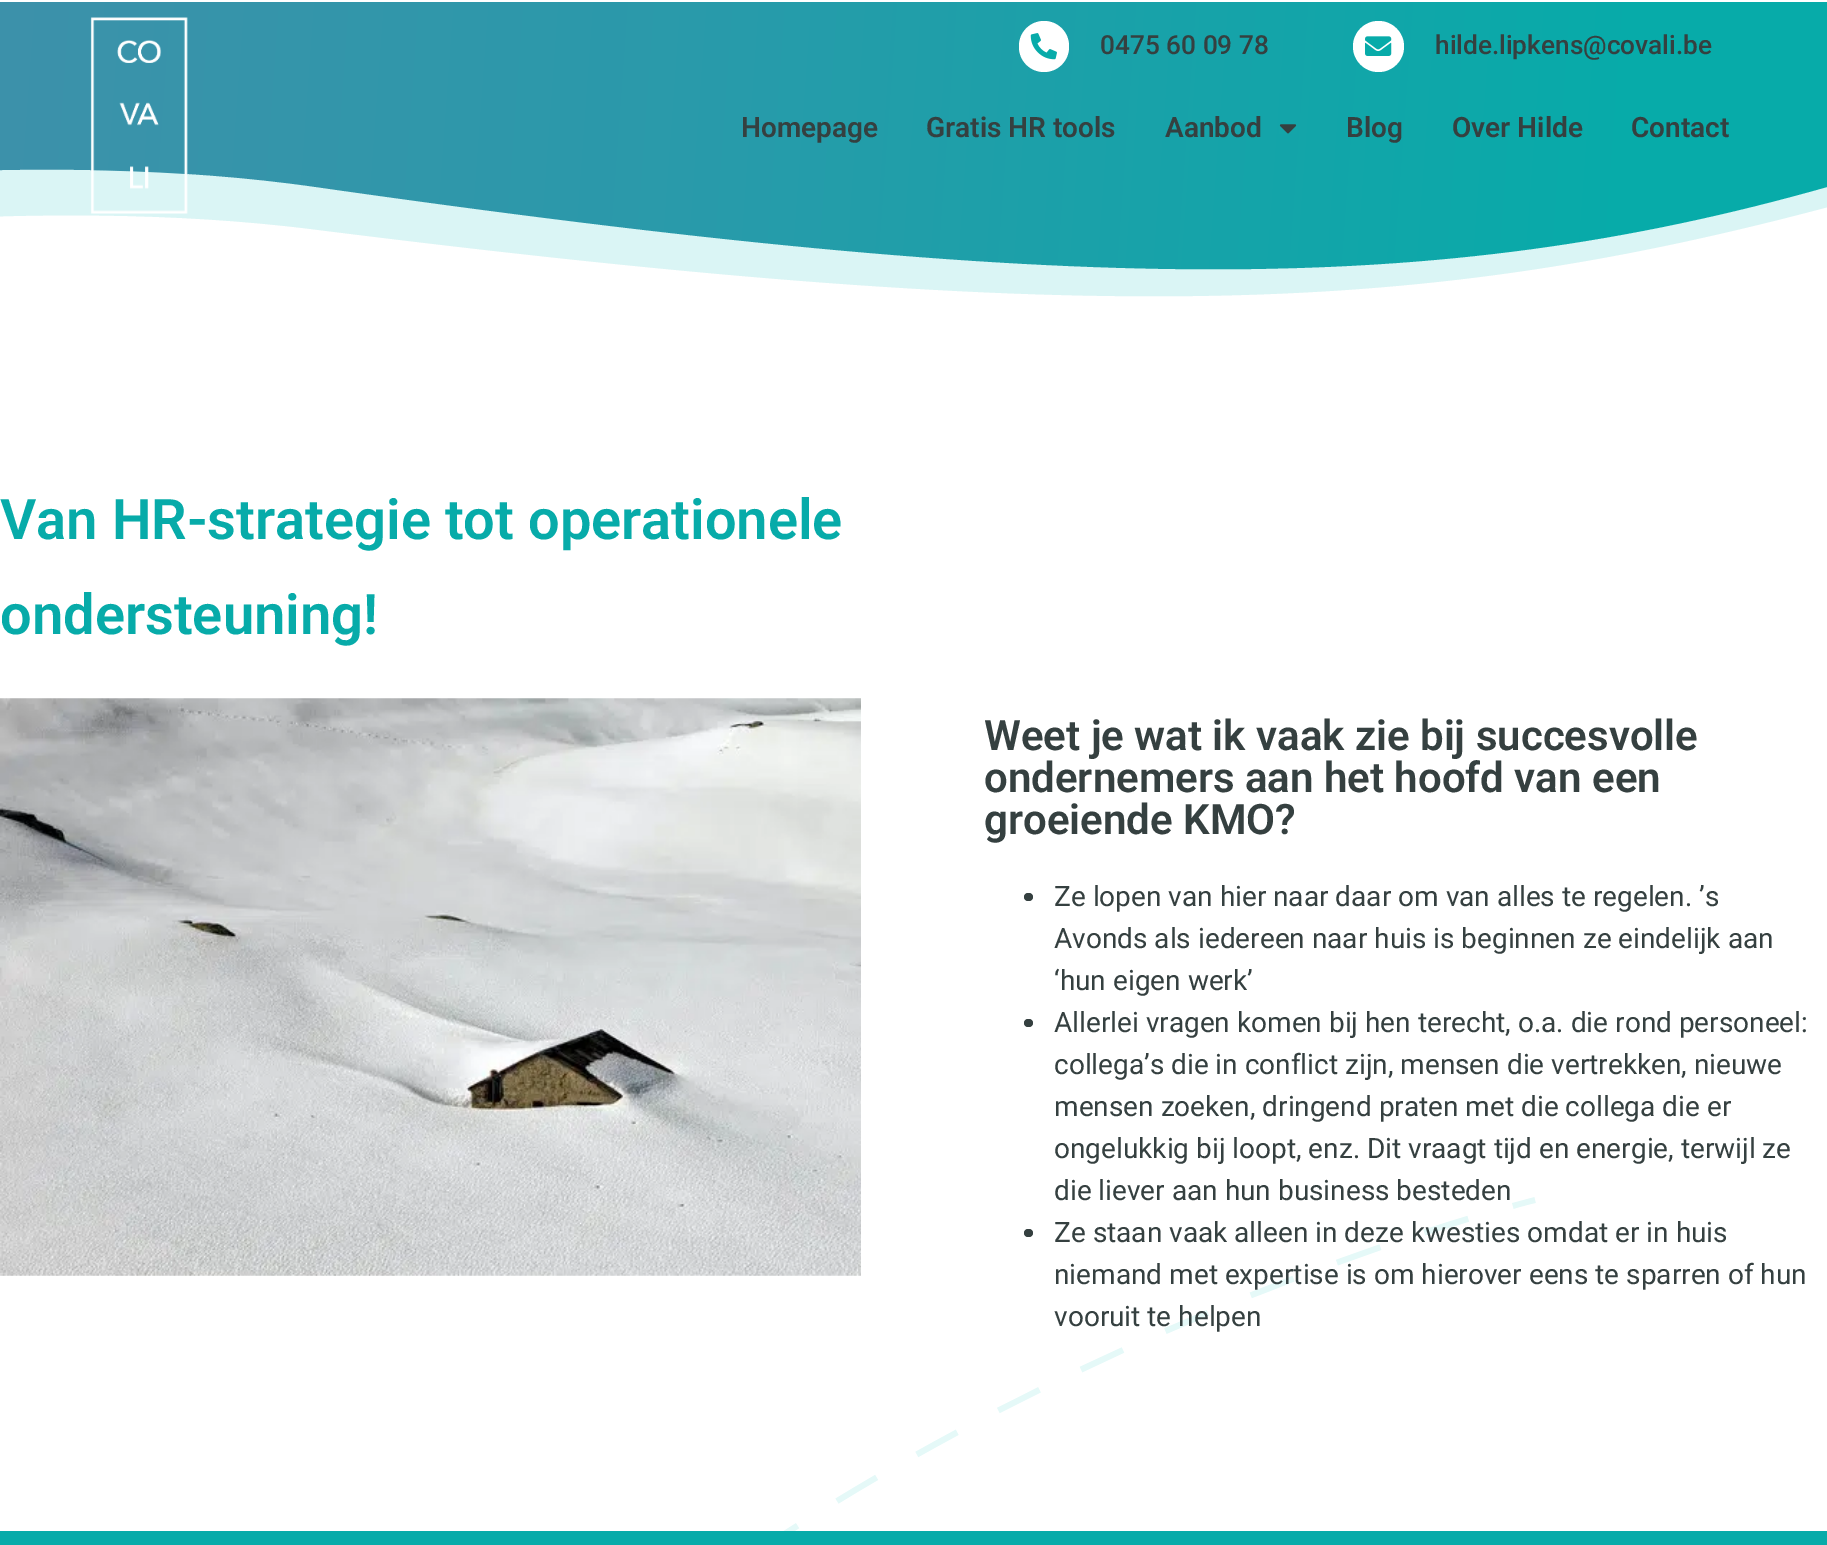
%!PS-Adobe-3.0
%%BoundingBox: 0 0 1827 1545
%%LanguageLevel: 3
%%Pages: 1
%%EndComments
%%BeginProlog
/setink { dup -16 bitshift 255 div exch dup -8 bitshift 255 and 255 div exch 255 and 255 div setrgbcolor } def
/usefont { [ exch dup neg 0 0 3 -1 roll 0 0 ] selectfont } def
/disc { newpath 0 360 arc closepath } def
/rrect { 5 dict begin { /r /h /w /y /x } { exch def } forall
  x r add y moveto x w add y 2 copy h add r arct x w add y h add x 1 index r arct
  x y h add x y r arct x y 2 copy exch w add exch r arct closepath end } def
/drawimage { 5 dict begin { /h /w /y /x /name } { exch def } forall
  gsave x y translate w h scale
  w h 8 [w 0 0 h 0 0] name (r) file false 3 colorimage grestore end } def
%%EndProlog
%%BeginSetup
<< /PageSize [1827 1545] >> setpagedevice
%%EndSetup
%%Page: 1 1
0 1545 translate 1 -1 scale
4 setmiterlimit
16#FFFFFF setink
0 0 1827 1545 rectfill
(img1.raw) 783 1197 753 334 drawimage
gsave -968 2 moveto -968 343 lineto -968 343 -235 90 498 231 curveto 1336 392 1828 187 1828 187 curveto 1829 2 lineto closepath clip newpath
<< /ShadingType 2 /ColorSpace /DeviceRGB /Coords [-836 80 1656 262] /Extend [true true] /Function << /FunctionType 3 /Domain [0 1] /Functions [<< /FunctionType 2 /Domain [0 1] /C0 [0.302 0.537 0.667] /C1 [0.302 0.537 0.667] /N 1 >> << /FunctionType 2 /Domain [0 1] /C0 [0.302 0.537 0.667] /C1 [0.267 0.557 0.667] /N 1 >> << /FunctionType 2 /Domain [0 1] /C0 [0.267 0.557 0.667] /C1 [0.165 0.604 0.667] /N 1 >> << /FunctionType 2 /Domain [0 1] /C0 [0.165 0.604 0.667] /C1 [0.027 0.671 0.663] /N 1 >> << /FunctionType 2 /Domain [0 1] /C0 [0.027 0.671 0.663] /C1 [0.027 0.671 0.663] /N 1 >>] /Bounds [0.02 0.23 0.6 0.99] /Encode [0 1 0 1 0 1 0 1 0 1] >> >> shfill grestore
16#DAF5F5 setink
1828 187 moveto 1433 299 1071 295 314 187 curveto -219 111 -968 312 -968 312 curveto -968 363 lineto -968 363 -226 162 311 229 curveto 1105 329 1425 314 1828 207 curveto closepath fill
(img2.raw) 90 17 98 197 drawimage
16#FFFFFF setink
1019 21 50 51 25 rrect fill
(img3.raw) 1030 33 27 27 drawimage
/Roboto-Medium 26.25 usefont
16#354040 setink
1100 54 moveto (0475 60 09 78) show
16#FFFFFF setink
1378.5 46.5 25.5 disc fill
(img4.raw) 1365 36 27 20 drawimage
16#354040 setink
1435 54 moveto (hilde.lipkens@covali.be) show
/Roboto-SemiBold 28 usefont
[
    [(Homepage) 741 137]
    [(Gratis HR tools) 926 137]
    [(Aanbod) 1165 137]
] { aload pop moveto show } forall
(img5.raw) 1279 124 18 10 drawimage
[
    [(Blog) 1346 137]
    [(Over Hilde) 1452 137]
    [(Contact) 1631 137]
] { aload pop moveto show } forall
/Roboto-SemiBold 56 usefont
16#07ABA9 setink
0 539 moveto (Van HR-strategie tot operationele) show
0 634 moveto (ondersteuning!) show
(img6.raw) 0 698 861 578 drawimage
/Roboto-SemiBold 42 usefont
16#354040 setink
[
    [(Weet je wat ik vaak zie bij succesvolle) 984 750]
    [(ondernemers aan het hoofd van een) 984 792]
    [(groeiende KMO?) 984 834]
] { aload pop moveto show } forall
1024 893 9 8 4 rrect fill
/Roboto-Regular 28 usefont
[
    [(Ze lopen van hier naar daar om van alles te regelen. ’s) 1054 906]
    [(Avonds als iedereen naar huis is beginnen ze eindelijk aan) 1054 948]
    [(‘hun eigen werk’) 1054 990]
] { aload pop moveto show } forall
1024 1019 9 8 4 rrect fill
[
    [(Allerlei vragen komen bij hen terecht, o.a. die rond personeel:) 1054 1032]
    [(collega’s die in conflict zijn, mensen die vertrekken, nieuwe) 1054 1074]
    [(mensen zoeken, dringend praten met die collega die er) 1054 1116]
    [(ongelukkig bij loopt, enz. Dit vraagt tijd en energie, terwijl ze) 1054 1158]
    [(die liever aan hun business besteden) 1054 1200]
] { aload pop moveto show } forall
1024 1229 9 8 4 rrect fill
[
    [(Ze staan vaak alleen in deze kwesties omdat er in huis) 1054 1242]
    [(niemand met expertise is om hierover eens te sparren of hun) 1054 1284]
    [(vooruit te helpen) 1054 1326]
] { aload pop moveto show } forall
16#07ABA9 setink
0 1531 1827 14 rectfill
showpage
%%EOF
